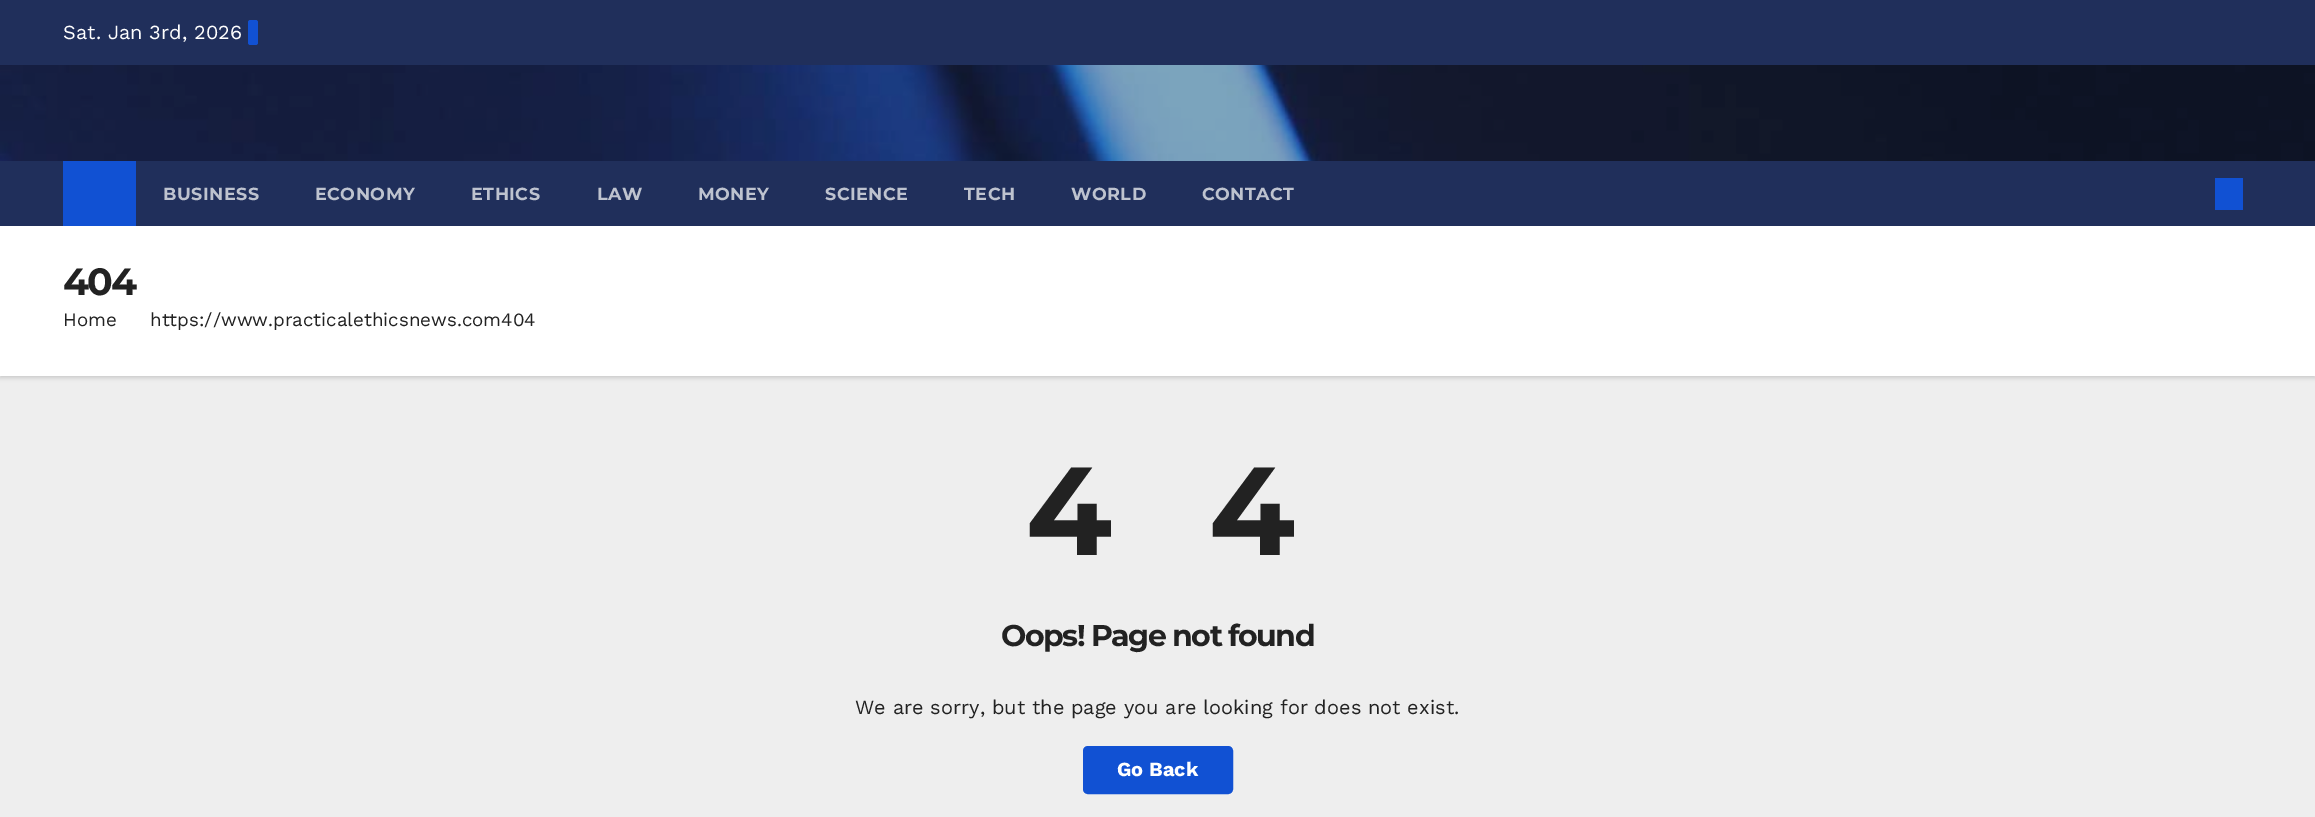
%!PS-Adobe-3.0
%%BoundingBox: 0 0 2315 817
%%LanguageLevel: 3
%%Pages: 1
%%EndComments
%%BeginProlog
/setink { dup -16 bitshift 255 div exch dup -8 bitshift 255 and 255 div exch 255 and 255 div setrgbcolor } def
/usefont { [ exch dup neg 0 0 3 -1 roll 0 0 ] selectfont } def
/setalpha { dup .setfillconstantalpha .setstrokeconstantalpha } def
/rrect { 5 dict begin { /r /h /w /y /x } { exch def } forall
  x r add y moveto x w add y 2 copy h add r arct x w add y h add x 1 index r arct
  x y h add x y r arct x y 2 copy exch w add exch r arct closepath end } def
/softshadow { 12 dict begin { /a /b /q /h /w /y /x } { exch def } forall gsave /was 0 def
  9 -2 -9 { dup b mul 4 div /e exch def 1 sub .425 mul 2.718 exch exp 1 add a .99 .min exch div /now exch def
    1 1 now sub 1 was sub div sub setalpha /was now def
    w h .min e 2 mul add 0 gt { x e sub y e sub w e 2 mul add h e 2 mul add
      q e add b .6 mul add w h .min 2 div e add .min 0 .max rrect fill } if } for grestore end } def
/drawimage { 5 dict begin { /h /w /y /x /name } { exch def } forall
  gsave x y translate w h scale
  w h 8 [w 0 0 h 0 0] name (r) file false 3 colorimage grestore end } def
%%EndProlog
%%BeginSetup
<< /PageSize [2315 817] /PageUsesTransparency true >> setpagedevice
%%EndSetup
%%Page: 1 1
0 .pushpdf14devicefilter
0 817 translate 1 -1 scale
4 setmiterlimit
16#EEEEEE setink
0 0 2315 817 rectfill
16#202F5B setink
0 0 2315 65 rectfill
/WorkSans-Regular 20 usefont
16#FFFFFF setink
63 39 moveto (Sat. Jan 3rd, 2026) show
16#1151D3 setink
248 20 10 25 2.5 rrect fill
(img1.raw) 0 65 2315 96 drawimage
16#000000 setink
0 228 2315 150 0 2 0.15 softshadow
16#202F5B setink
0 161 2315 65 rectfill
16#1151D3 setink
63 161 73 65 rectfill
/Montserrat-Bold 17.5 usefont
16#BEC3CF setink
163 200 moveto 0.5 0 (BUSINESS) ashow
315 200 moveto 0.5 0 (ECONOMY) ashow
471 200 moveto 0.5 0 (ETHICS) ashow
597 200 moveto 0.5 0 (LAW) ashow
698 200 moveto 0.5 0 (MONEY) ashow
825 200 moveto 0.5 0 (SCIENCE) ashow
964 200 moveto 0.5 0 (TECH) ashow
1071 200 moveto 0.5 0 (WORLD) ashow
1202 200 moveto 0.5 0 (CONTACT) ashow
16#1151D3 setink
2215 178 28 32 rectfill
16#FFFFFF setink
0 226 2315 150 rectfill
/Montserrat-Bold 38 usefont
16#222222 setink
63 295 moveto -2 0 (404) ashow
/WorkSans-Regular 18.75 usefont
63 326 moveto (Home) show
150 326 moveto (https://www.practicalethicsnews.com404) show
/Montserrat-Bold 125 usefont
1026 555 moveto -6 0 (4) ashow
1209 555 moveto -6 0 (4) ashow
/Montserrat-Bold 30 usefont
1001 646 moveto -1.5 0 (Oops! Page not found) ashow
/WorkSans-Regular 20 usefont
855 714 moveto (We are sorry, but the page you are looking for does not exist.) show
16#1151D3 setink
1084.5 747.5 147 45 3.5 rrect gsave fill grestore
3 setlinewidth
stroke
/WorkSans-Bold 20 usefont
16#FFFFFF setink
1117 776 moveto (Go Back) show
.poppdf14devicefilter showpage
%%EOF
